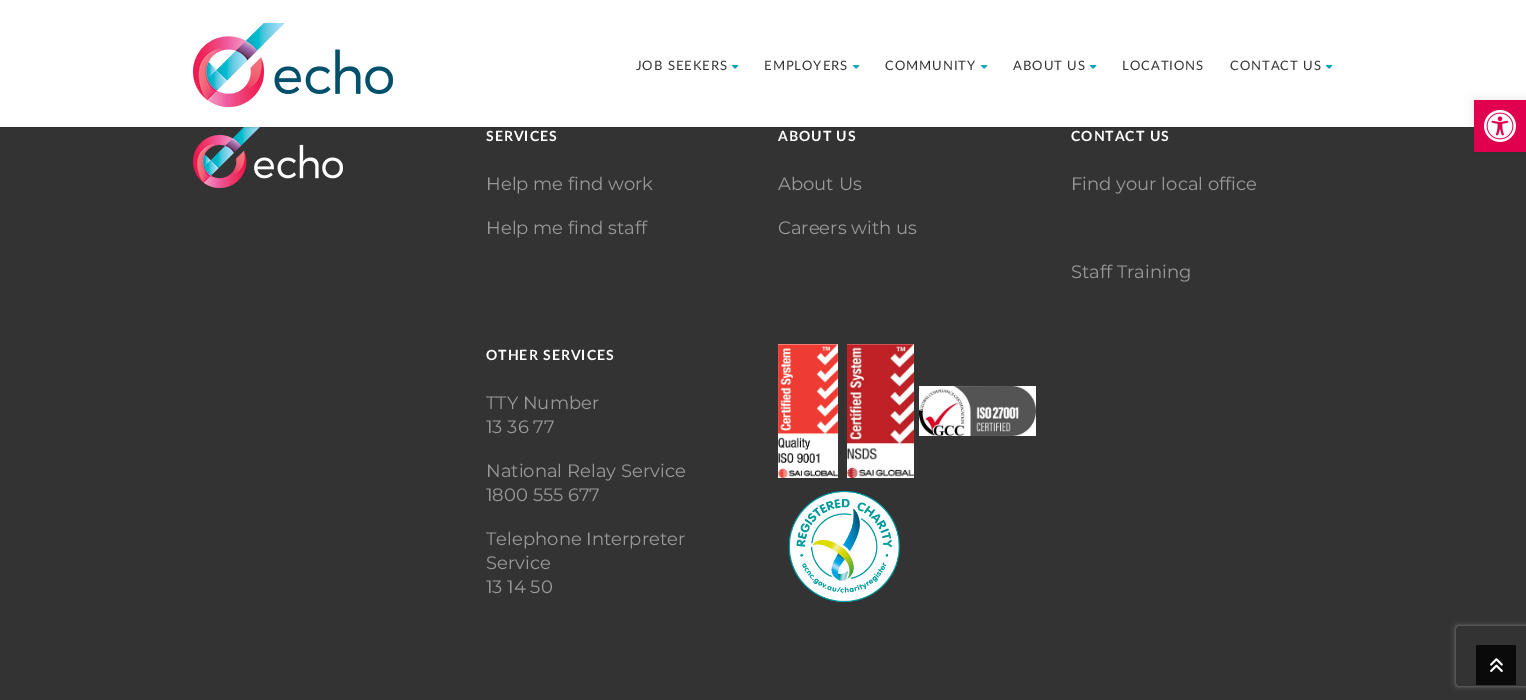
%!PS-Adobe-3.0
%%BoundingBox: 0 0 1526 700
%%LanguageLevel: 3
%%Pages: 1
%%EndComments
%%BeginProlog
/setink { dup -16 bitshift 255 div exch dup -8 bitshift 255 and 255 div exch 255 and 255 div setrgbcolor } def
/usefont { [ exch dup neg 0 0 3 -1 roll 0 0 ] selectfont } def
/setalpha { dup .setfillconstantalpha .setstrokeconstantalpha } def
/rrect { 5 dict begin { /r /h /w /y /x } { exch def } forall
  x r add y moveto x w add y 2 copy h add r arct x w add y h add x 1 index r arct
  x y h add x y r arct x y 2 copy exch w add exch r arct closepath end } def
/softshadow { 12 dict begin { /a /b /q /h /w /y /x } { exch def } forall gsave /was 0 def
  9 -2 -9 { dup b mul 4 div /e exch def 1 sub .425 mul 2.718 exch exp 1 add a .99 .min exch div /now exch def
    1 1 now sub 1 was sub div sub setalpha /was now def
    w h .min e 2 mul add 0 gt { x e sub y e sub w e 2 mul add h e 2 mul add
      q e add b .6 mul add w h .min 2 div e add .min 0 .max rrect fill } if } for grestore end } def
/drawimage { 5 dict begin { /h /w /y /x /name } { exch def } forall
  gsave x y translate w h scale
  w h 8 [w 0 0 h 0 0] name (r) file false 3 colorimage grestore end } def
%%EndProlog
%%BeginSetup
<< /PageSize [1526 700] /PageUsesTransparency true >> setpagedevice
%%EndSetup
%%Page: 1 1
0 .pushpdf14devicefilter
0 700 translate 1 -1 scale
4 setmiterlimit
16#333333 setink
0 0 1526 700 rectfill
(img3.raw) 193 127 150 61 drawimage
16#000000 setink
0 1 1526 127 0 0.5 0.1 softshadow
16#FFFFFF setink
0 0 1526 127 rectfill
(img1.raw) 193 23 200 84 drawimage
/Lato-Regular 13 usefont
16#333333 setink
636 70 moveto 1 0 (JOB SEEKERS) ashow
(img2.raw) 732 65 7 4 drawimage
764 70 moveto 1 0 (EMPLOYERS) ashow
(img2.raw) 853 65 7 4 drawimage
885 70 moveto 1 0 (COMMUNITY) ashow
(img2.raw) 981 65 7 4 drawimage
1013 70 moveto 1 0 (ABOUT US) ashow
(img2.raw) 1090 65 7 4 drawimage
1122 70 moveto 1 0 (LOCATIONS) ashow
1230 70 moveto 1 0 (CONTACT US) ashow
(img2.raw) 1326 65 7 4 drawimage
/Lato-Bold 14 usefont
16#FFFFFF setink
486 141 moveto 1 0 (SERVICES) ashow
/Montserrat-Thin 18 usefont
16#999999 setink
486 190 moveto (Help me find work) show
486 234 moveto (Help me find staff) show
/Lato-Bold 14 usefont
16#FFFFFF setink
778 141 moveto 1 0 (ABOUT US) ashow
/Montserrat-Thin 18 usefont
16#999999 setink
778 190 moveto (About Us) show
778 234 moveto (Careers with us) show
/Lato-Bold 14 usefont
16#FFFFFF setink
1071 141 moveto 1 0 (CONTACT US) ashow
/Montserrat-Thin 18 usefont
16#999999 setink
1071 190 moveto (Find your local office) show
1071 278 moveto (Staff Training) show
/Lato-Bold 14 usefont
16#FFFFFF setink
486 360 moveto 1 0 (OTHER SERVICES) ashow
/Montserrat-Thin 18 usefont
16#999999 setink
[
    [(TTY Number) 486 409]
    [(13 36 77) 486 433]
    [(National Relay Service) 486 477]
    [(1800 555 677) 486 501]
    [(Telephone Interpreter) 486 545]
    [(Service) 486 569]
    [(13 14 50) 486 593]
] { aload pop moveto show } forall
(img4.raw) 778 344 60 134 drawimage
(img5.raw) 847 344 67 134 drawimage
(img6.raw) 919 386 117 50 drawimage
(img7.raw) 788 490 112 113 drawimage
gsave
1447 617 moveto 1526 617 lineto 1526 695 lineto 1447 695 lineto closepath 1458 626 moveto 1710 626 lineto 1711 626 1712 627 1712 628 curveto 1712 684 lineto 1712 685 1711 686 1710 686 curveto 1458 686 lineto 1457 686 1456 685 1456 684 curveto 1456 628 lineto 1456 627 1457 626 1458 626 curveto closepath eoclip newpath
16#808080 setink
1456 626 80 60 2 2.5 1 softshadow
grestore
16#0A0A0A setink
1476 645 40 40 rectfill
(img8.raw) 1490 658 13 14 drawimage
16#000000 setink
1474 100 52 52 0 5 0.1 softshadow
16#E1004E setink
1474 100 52 52 rectfill
(img9.raw) 1484 110 32 32 drawimage
.poppdf14devicefilter showpage
%%EOF
